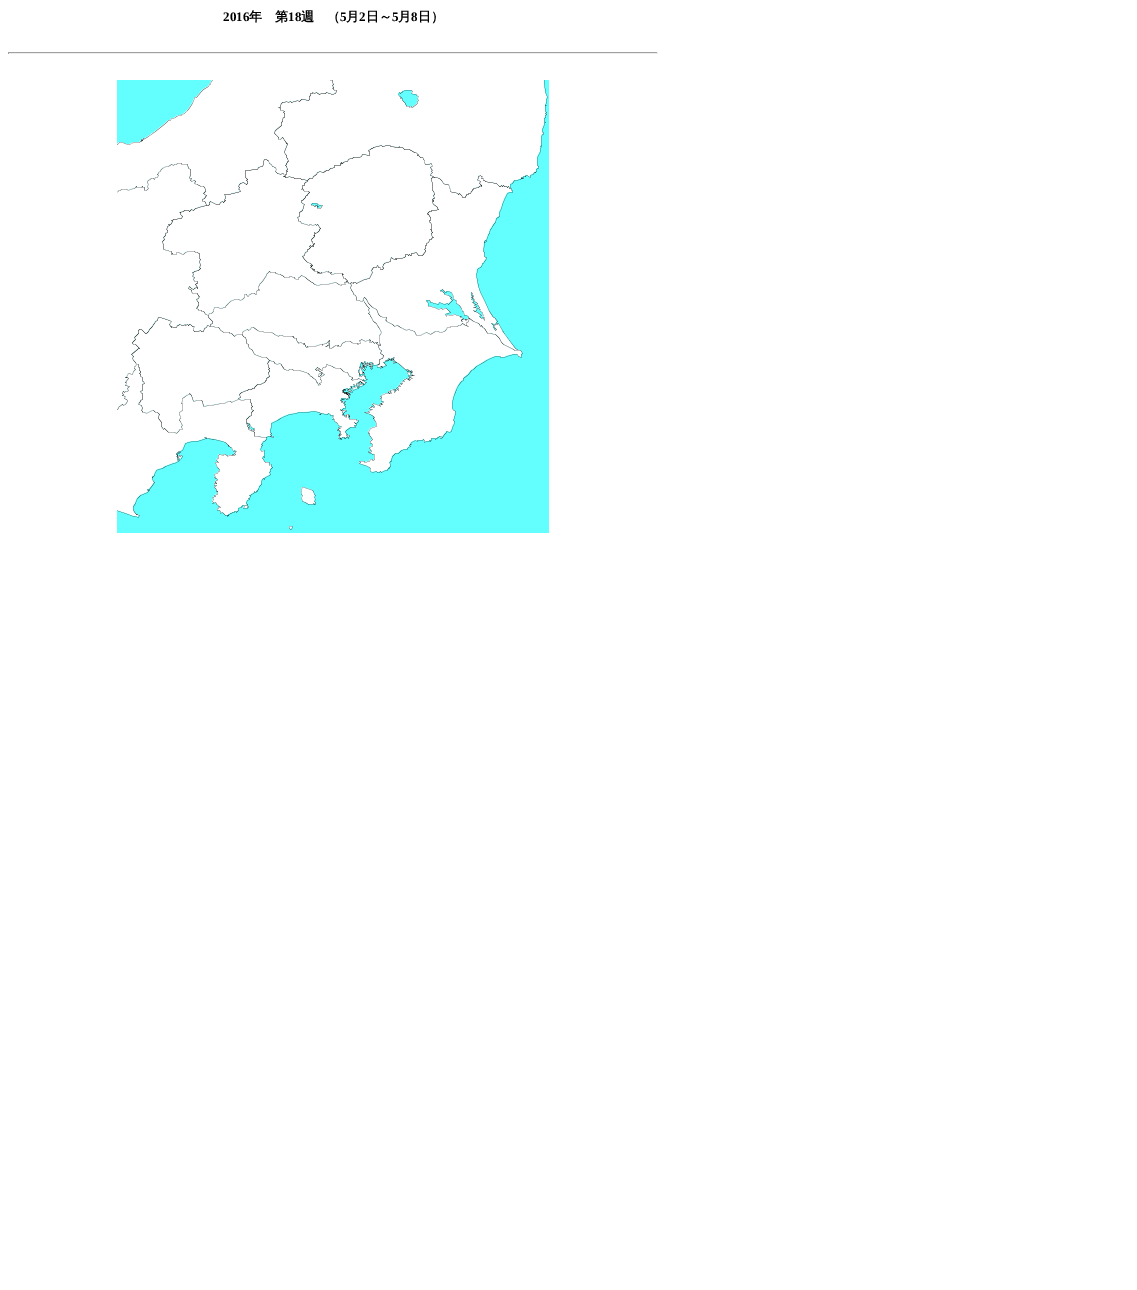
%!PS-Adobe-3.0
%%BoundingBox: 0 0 1137 1290
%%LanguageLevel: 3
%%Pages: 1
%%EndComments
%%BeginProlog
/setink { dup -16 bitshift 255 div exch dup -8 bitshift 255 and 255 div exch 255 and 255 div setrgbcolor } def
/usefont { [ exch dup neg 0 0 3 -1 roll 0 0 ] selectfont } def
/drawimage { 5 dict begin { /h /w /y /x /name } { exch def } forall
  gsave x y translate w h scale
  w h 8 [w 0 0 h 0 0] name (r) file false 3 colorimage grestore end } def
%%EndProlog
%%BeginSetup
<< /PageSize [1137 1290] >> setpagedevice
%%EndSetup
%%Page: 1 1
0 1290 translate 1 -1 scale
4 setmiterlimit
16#FFFFFF setink
0 0 1137 1290 rectfill
/LiberationSerif-Bold 13 usefont
16#000000 setink
223 21 moveto (2016) show
/WenQuanYiZenHei-Bold 13 usefont
249 21 moveto (年　第) show
/LiberationSerif-Bold 13 usefont
288 21 moveto (18) show
/WenQuanYiZenHei-Bold 13 usefont
301 21 moveto (週　（) show
/LiberationSerif-Bold 13 usefont
340 21 moveto (5) show
/WenQuanYiZenHei-Bold 13 usefont
346 21 moveto (月) show
/LiberationSerif-Bold 13 usefont
359 21 moveto (2) show
/WenQuanYiZenHei-Bold 13 usefont
366 21 moveto (日～) show
/LiberationSerif-Bold 13 usefont
392 21 moveto (5) show
/WenQuanYiZenHei-Bold 13 usefont
398 21 moveto (月) show
/LiberationSerif-Bold 13 usefont
411 21 moveto (8) show
/WenQuanYiZenHei-Bold 13 usefont
418 21 moveto (日）) show
[
    [8 52 650 1 16#9F9F9F]
    [657 52 1 2 16#EEEEEE]
    [8 53 650 1 16#EEEEEE]
    [8 52 1 2 16#9F9F9F]
] { aload pop setink rectfill } forall
(img1.raw) 117 80 432 453 drawimage
showpage
%%EOF
